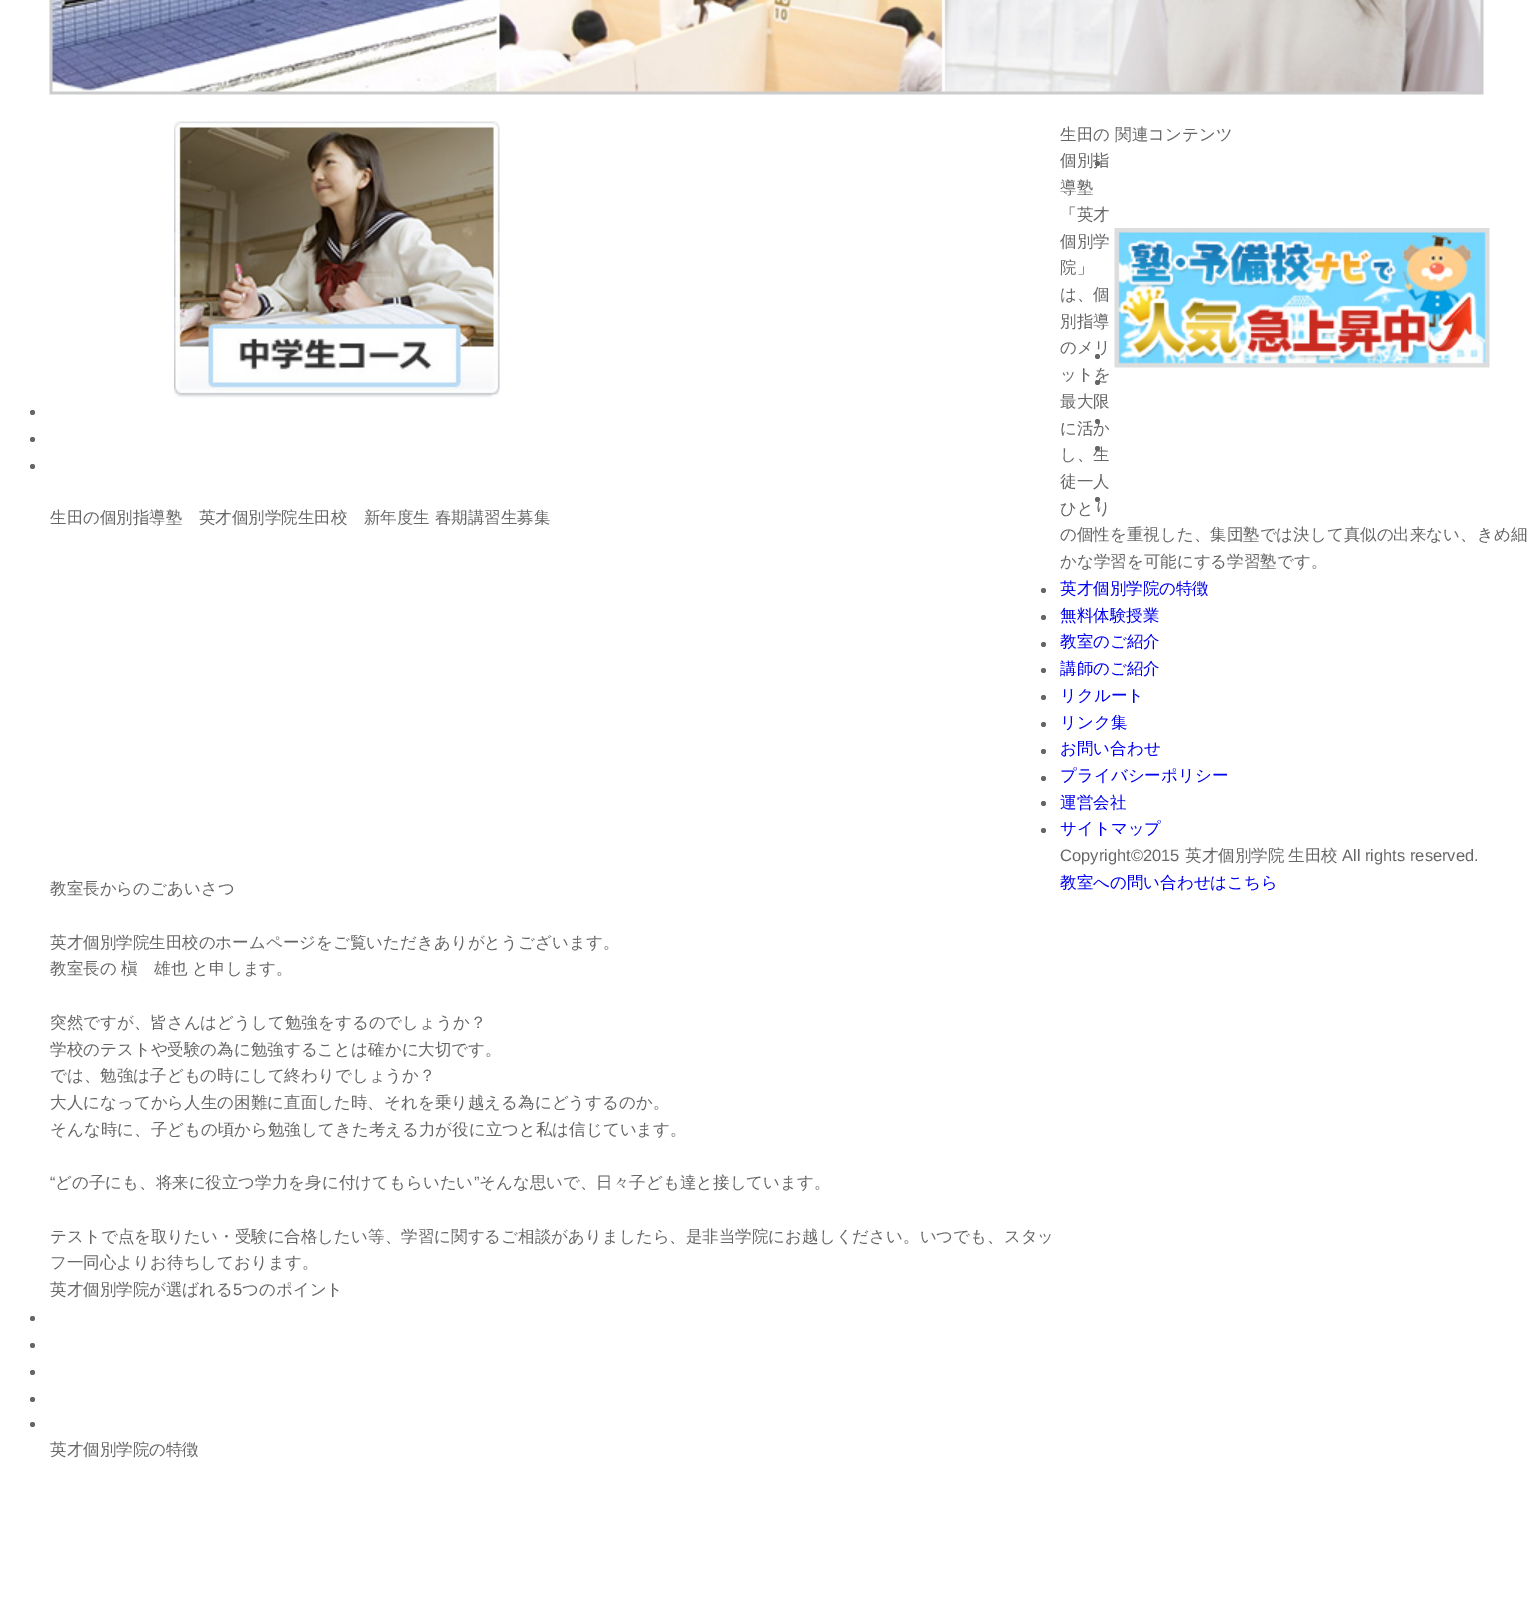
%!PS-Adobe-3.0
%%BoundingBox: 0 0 1538 1616
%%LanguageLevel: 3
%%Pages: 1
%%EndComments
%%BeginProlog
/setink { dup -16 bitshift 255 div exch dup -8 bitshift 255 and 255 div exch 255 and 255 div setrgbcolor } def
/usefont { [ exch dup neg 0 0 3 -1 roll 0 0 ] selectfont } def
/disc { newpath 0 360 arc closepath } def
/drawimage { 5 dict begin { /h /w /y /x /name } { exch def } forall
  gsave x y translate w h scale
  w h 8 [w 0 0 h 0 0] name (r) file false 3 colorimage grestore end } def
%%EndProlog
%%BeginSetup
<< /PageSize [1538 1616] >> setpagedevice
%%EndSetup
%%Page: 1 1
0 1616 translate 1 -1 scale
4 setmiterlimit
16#FFFFFF setink
0 0 1538 1616 rectfill
(img1.raw) 49 0 1435 95 drawimage
/WenQuanYiZenHei-Medium 16.5 usefont
16#666666 setink
1115 140 moveto (関連コンテンツ) show
1097.5 163.5 2.5 disc fill
1097.5 356.5 2.5 disc fill
(img2.raw) 1114 228 376 140 drawimage
1097.5 382.5 2.5 disc fill
1097.5 421.5 2.5 disc fill
1097.5 448.5 2.5 disc fill
1097.5 499.5 2.5 disc fill
(img3.raw) 174 121 326 277 drawimage
32.5 412.5 2.5 disc fill
32.5 439.5 2.5 disc fill
32.5 466.5 2.5 disc fill
[
    [(生田の個別指導塾　英才個別学院生田校　新年度生 春期講習生募集) 50 523]
    [(教室長からのごあいさつ) 50 894]
    [(英才個別学院生田校のホームページをご覧いただきありがとうございます。) 50 948]
    [(教室長の 槇　雄也 と申します。) 50 974]
    [(突然ですが、皆さんはどうして勉強をするのでしょうか？) 50 1028]
    [(学校のテストや受験の為に勉強することは確かに大切です。) 50 1055]
    [(では、勉強は子どもの時にして終わりでしょうか？) 50 1081]
    [(大人になってから人生の困難に直面した時、それを乗り越える為にどうするのか。) 50 1108]
    [(そんな時に、子どもの頃から勉強してきた考える力が役に立つと私は信じています。) 50 1135]
] { aload pop moveto show } forall
/LiberationSans-Regular 16.5 usefont
50 1188 moveto (“) show
/WenQuanYiZenHei-Medium 16.5 usefont
55 1188 moveto (どの子にも、将来に役立つ学力を身に付けてもらいたい) show
/LiberationSans-Regular 16.5 usefont
474 1188 moveto (”) show
/WenQuanYiZenHei-Medium 16.5 usefont
[
    [(そんな思いで、日々子ども達と接しています。) 479 1188]
    [(テストで点を取りたい・受験に合格したい等、学習に関するご相談がありましたら、是非当学院にお越しください。いつでも、スタッ) 50 1242]
    [(フ一同心よりお待ちしております。) 50 1268]
    [(英才個別学院が選ばれる) 50 1295]
] { aload pop moveto show } forall
/LiberationSans-Regular 16.5 usefont
233 1295 moveto (5) show
/WenQuanYiZenHei-Medium 16.5 usefont
242 1295 moveto (つのポイント) show
32.5 1318.5 2.5 disc fill
32.5 1345.5 2.5 disc fill
32.5 1372.5 2.5 disc fill
32.5 1399.5 2.5 disc fill
32.5 1424.5 2.5 disc fill
[
    [(英才個別学院の特徴) 50 1455]
    [(生田の) 1060 140]
    [(個別指) 1060 166]
    [(導塾) 1060 193]
    [(「英才) 1060 220]
    [(個別学) 1060 247]
    [(院」) 1060 273]
    [(は、個) 1060 300]
    [(別指導) 1060 327]
    [(のメリ) 1060 353]
    [(ットを) 1060 380]
    [(最大限) 1060 407]
    [(に活か) 1060 434]
    [(し、生) 1060 460]
    [(徒一人) 1060 487]
    [(ひとり) 1060 514]
    [(の個性を重視した、集団塾では決して真似の出来ない、きめ細) 1060 540]
    [(かな学習を可能にする学習塾です。) 1060 567]
] { aload pop moveto show } forall
1043.5 590.5 2.5 disc fill
16#0000EE setink
1060 594 moveto (英才個別学院の特徴) show
16#666666 setink
1043.5 617.5 2.5 disc fill
16#0000EE setink
1060 621 moveto (無料体験授業) show
16#666666 setink
1043.5 644.5 2.5 disc fill
16#0000EE setink
1060 647 moveto (教室のご紹介) show
16#666666 setink
1043.5 670.5 2.5 disc fill
16#0000EE setink
1060 674 moveto (講師のご紹介) show
16#666666 setink
1043.5 697.5 2.5 disc fill
16#0000EE setink
1060 701 moveto (リクルート) show
16#666666 setink
1043.5 724.5 2.5 disc fill
16#0000EE setink
1060 728 moveto (リンク集) show
16#666666 setink
1043.5 751.5 2.5 disc fill
16#0000EE setink
1060 754 moveto (お問い合わせ) show
16#666666 setink
1043.5 778.5 2.5 disc fill
16#0000EE setink
1060 781 moveto (プライバシーポリシー) show
16#666666 setink
1043.5 803.5 2.5 disc fill
16#0000EE setink
1060 808 moveto (運営会社) show
16#666666 setink
1043.5 830.5 2.5 disc fill
16#0000EE setink
1060 834 moveto (サイトマップ) show
/LiberationSans-Regular 16.5 usefont
16#666666 setink
1060 861 moveto (Copyright©2015) show
/WenQuanYiZenHei-Medium 16.5 usefont
1185 861 moveto (英才個別学院) show
1288 861 moveto (生田校) show
/LiberationSans-Regular 16.5 usefont
1342 861 moveto (All rights reserved.) show
/WenQuanYiZenHei-Medium 16.5 usefont
16#0000EE setink
1060 888 moveto (教室への問い合わせはこちら) show
showpage
%%EOF
